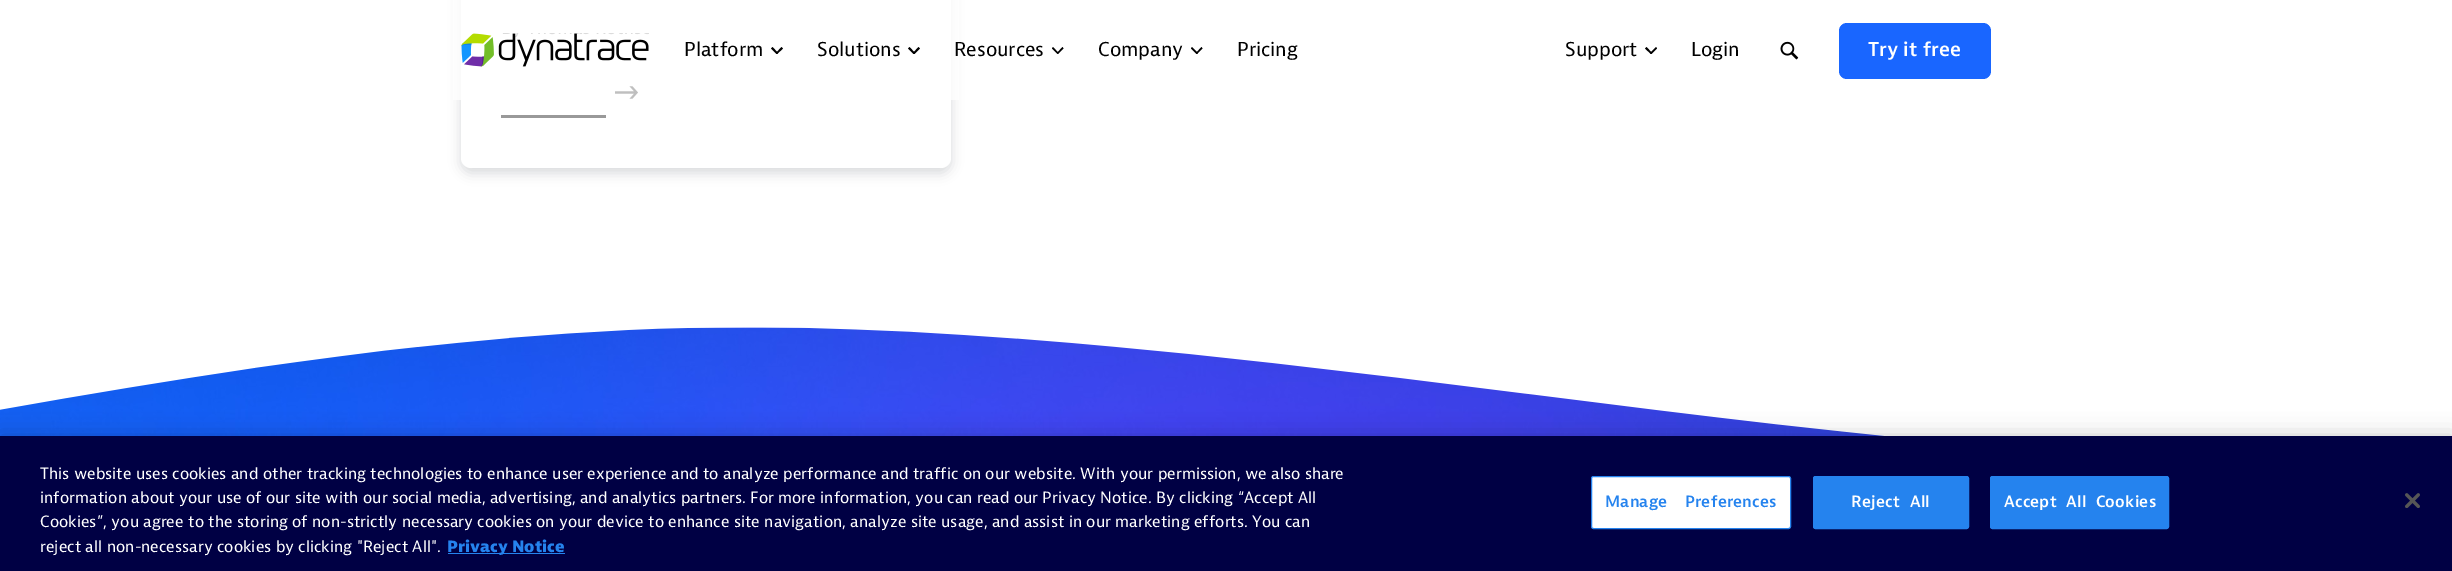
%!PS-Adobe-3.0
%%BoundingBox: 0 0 2452 571
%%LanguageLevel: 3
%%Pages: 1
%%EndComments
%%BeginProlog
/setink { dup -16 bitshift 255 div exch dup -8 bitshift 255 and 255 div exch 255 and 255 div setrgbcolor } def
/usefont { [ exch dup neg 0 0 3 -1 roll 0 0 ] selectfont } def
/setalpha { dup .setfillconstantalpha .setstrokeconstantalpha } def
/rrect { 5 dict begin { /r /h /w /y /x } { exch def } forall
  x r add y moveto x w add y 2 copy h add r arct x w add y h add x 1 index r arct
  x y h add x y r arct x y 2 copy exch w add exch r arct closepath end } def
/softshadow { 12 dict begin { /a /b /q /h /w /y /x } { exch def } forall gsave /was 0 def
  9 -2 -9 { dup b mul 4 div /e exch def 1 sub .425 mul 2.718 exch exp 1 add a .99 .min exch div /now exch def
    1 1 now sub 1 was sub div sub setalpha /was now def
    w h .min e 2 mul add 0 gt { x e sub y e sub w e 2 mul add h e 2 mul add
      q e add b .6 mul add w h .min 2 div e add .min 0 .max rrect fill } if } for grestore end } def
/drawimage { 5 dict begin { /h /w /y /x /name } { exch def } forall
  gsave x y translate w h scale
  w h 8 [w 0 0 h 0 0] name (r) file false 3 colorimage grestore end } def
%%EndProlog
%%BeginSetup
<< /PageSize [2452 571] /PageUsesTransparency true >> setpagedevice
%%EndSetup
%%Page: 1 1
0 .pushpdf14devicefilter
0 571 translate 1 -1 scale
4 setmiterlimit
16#FFFFFF setink
0 0 2452 571 rectfill
16#02091B setink
461 -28 490 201 10 6 0.15 softshadow
16#FFFFFF setink
461 -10 490 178 10 rrect fill
(img1.raw) 615 86 23 13 drawimage
16#999999 setink
501 115 105 3 rectfill
0.75 setalpha
16#FFFFFF setink
453 0 506 100 rectfill
1 setalpha
(img2.raw) 461 33 188 34 drawimage
/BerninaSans-Regular 20 usefont
16#000000 setink
684 56 moveto (Platform) show
777 54 moveto 776 53 lineto 781.5 47 lineto 783 48.5 lineto closepath fill
778 53 moveto 776.5 54 lineto 771 48.5 lineto 772.5 47 lineto closepath fill
817 56 moveto (Solutions) show
914.5 54 moveto 913 53 lineto 918.5 47 lineto 920 48.5 lineto closepath fill
915 53 moveto 913.5 54 lineto 908 48.5 lineto 909.5 47 lineto closepath fill
954 56 moveto (Resources) show
1058 54 moveto 1057 53 lineto 1062.5 47 lineto 1063.5 48.5 lineto closepath fill
1058.5 53 moveto 1057.5 54 lineto 1052 48.5 lineto 1053 47 lineto closepath fill
1098 56 moveto (Company) show
1197 54 moveto 1196 53 lineto 1201.5 47 lineto 1202.5 48.5 lineto closepath fill
1198 53 moveto 1196.5 54 lineto 1191 48.5 lineto 1192 47 lineto closepath fill
1237 56 moveto (Pricing) show
1565 56 moveto (Support) show
1651.5 54 moveto 1650 53 lineto 1656 47 lineto 1657 48.5 lineto closepath fill
1652 53 moveto 1651 54 lineto 1645 48.5 lineto 1646.5 47 lineto closepath fill
1691 56 moveto (Login) show
(img3.raw) 1780 41 19 19 drawimage
16#1966FF setink
1839 23 152 56 8 rrect fill
/BerninaSans-SemiBold 20 usefont
16#FFFFFF setink
1868 56 moveto (Try it free) show
(img4.raw) 0 327 1884 109 drawimage
16#000000 setink
0 436 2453 135 0 11 0.2 softshadow
16#000044 setink
0 436 2452 135 rectfill
/BerninaSans-Regular 16.25 usefont
16#FFFFFF setink
[
    [(This website uses cookies and other tracking technologies to enhance user experience and to analyze performance and traffic on our website. With your permission, we also share) 40 479]
    [(information about your use of our site with our social media, advertising, and analytics partners. For more information, you can read our Privacy Notice. By clicking “Accept All) 40 503]
    [(Cookies”, you agree to the storing of non-strictly necessary cookies on your device to enhance site navigation, analyze site usage, and assist in our marketing efforts. You can) 40 527]
    [(reject all non-necessary cookies by clicking "Reject All".) 40 552]
] { aload pop moveto show } forall
16#2583EE setink
448 553 117 1 rectfill
/BerninaSans-ExtraBold 16.25 usefont
447 552 moveto (Privacy Notice) show
16#FFFFFF setink
1591.5 476.5 199 52 2 rrect gsave fill grestore
16#2583EE setink
stroke
/BerninaSans-SemiBold 16.25 usefont
1605 507 moveto 13 0 32 0.2 0 (Manage Preferences) awidthshow
1813.5 476.5 155 52 2 rrect gsave fill grestore
stroke
16#FFFFFF setink
1851 507 moveto 6 0 32 0.2 0 (Reject All) awidthshow
16#2583EE setink
1990.5 476.5 178 52 2 rrect gsave fill grestore
stroke
16#FFFFFF setink
2004 507 moveto 5 0 32 0.2 0 (Accept All Cookies) awidthshow
(img5.raw) 2405 493 15 15 drawimage
.poppdf14devicefilter showpage
%%EOF
